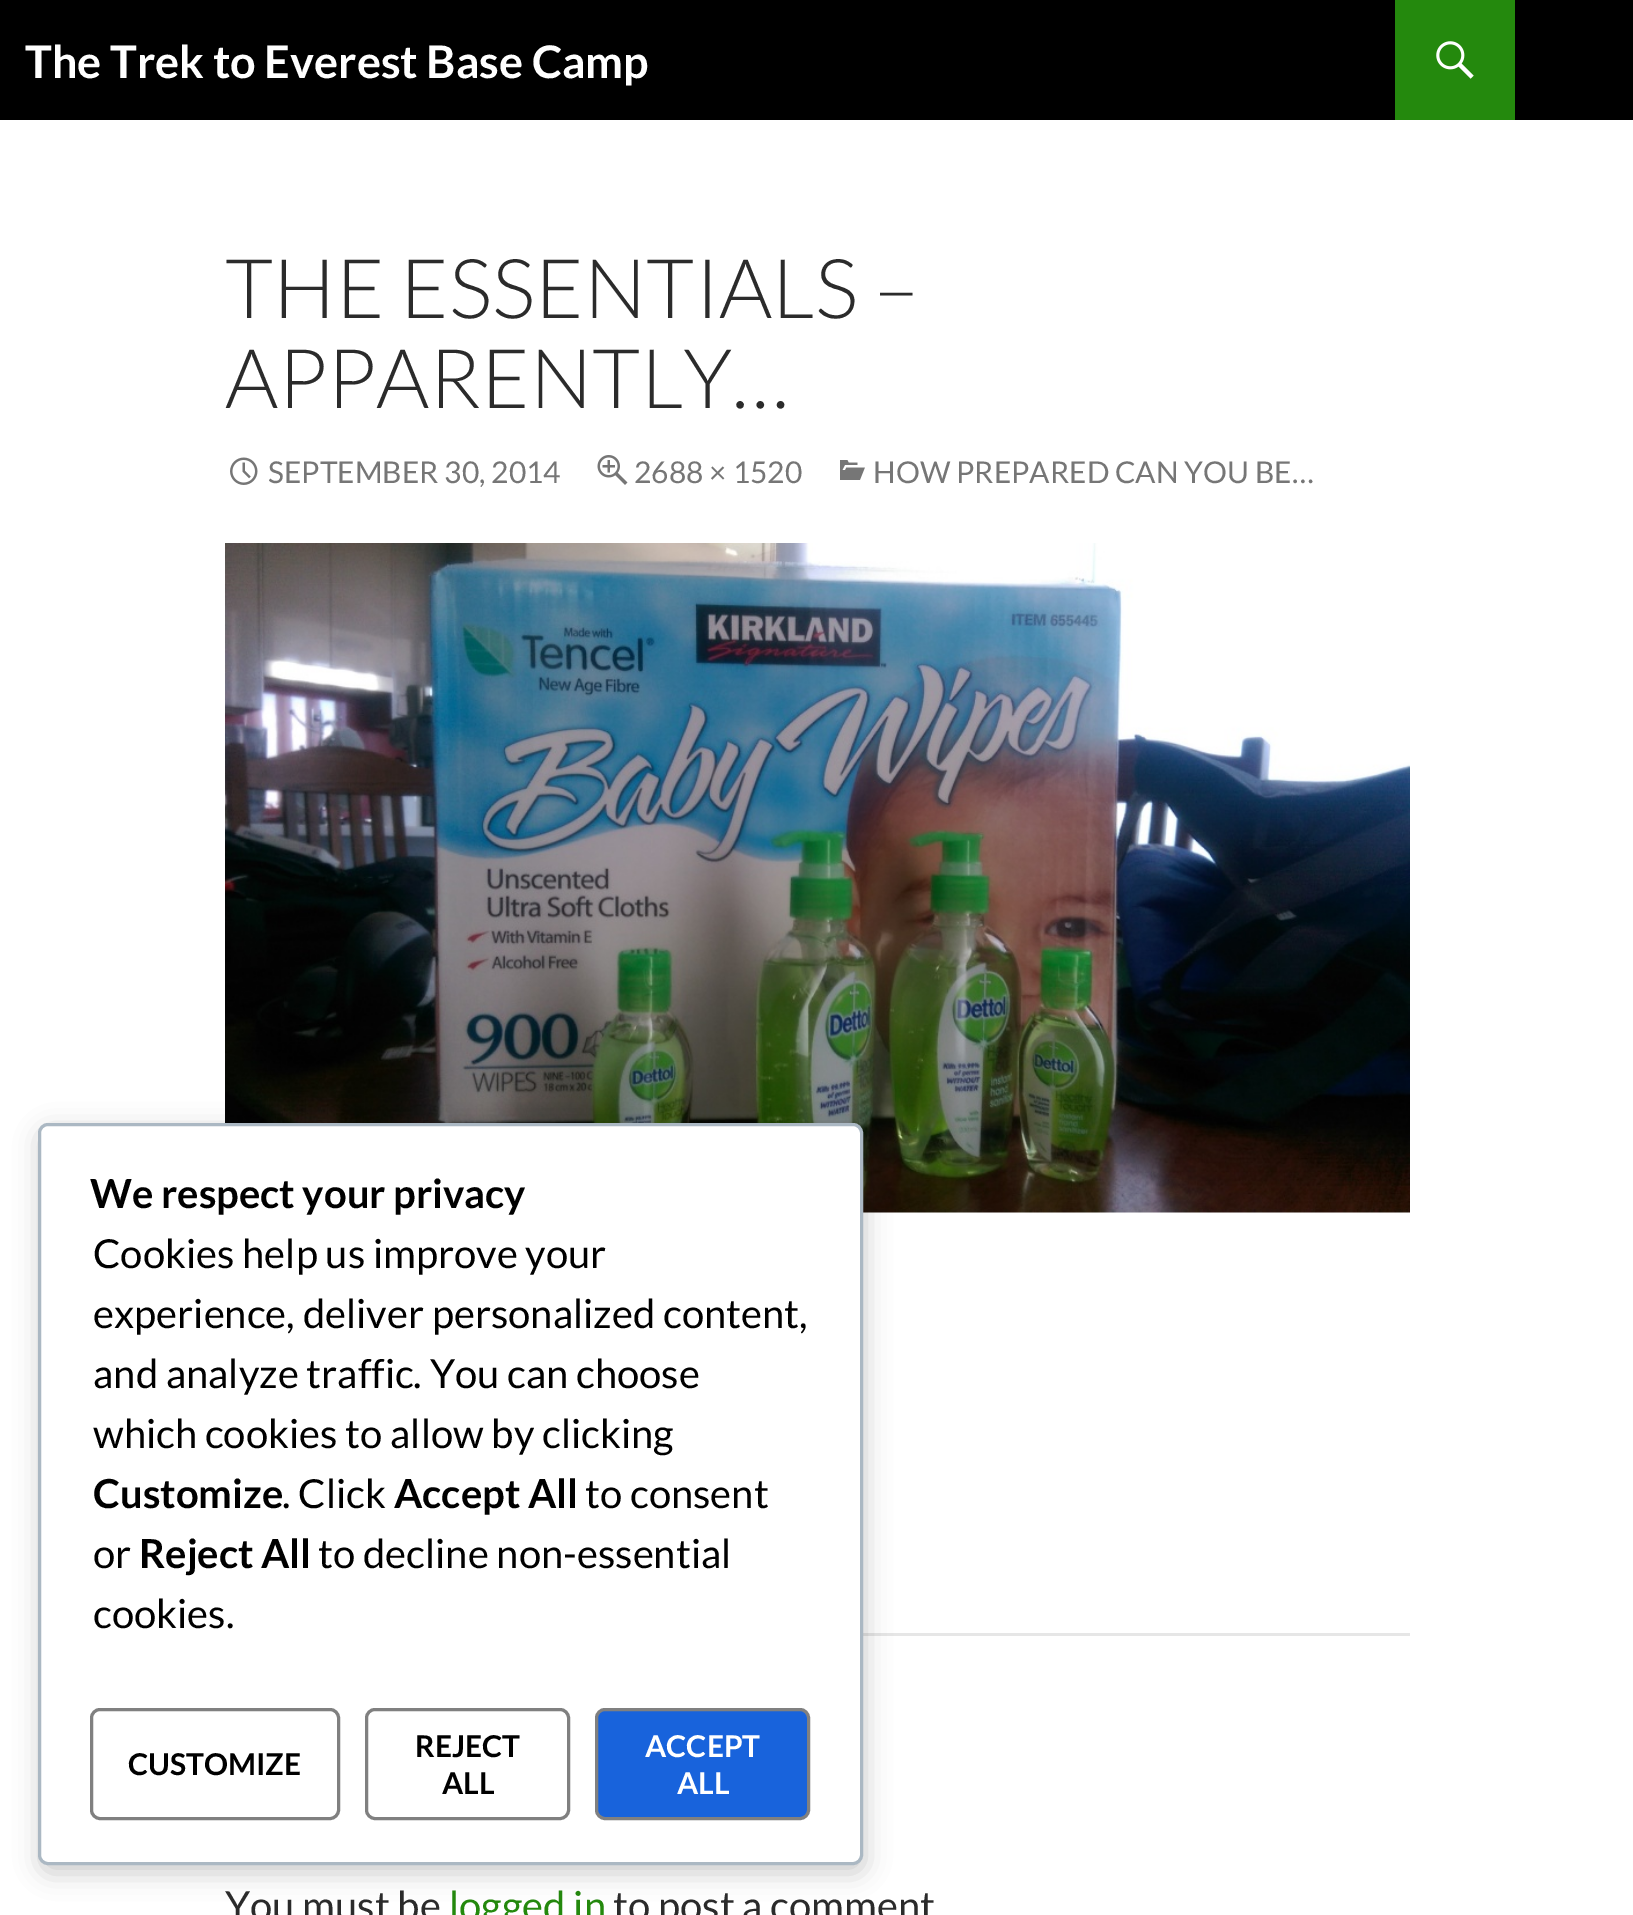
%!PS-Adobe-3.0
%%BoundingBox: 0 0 1633 1915
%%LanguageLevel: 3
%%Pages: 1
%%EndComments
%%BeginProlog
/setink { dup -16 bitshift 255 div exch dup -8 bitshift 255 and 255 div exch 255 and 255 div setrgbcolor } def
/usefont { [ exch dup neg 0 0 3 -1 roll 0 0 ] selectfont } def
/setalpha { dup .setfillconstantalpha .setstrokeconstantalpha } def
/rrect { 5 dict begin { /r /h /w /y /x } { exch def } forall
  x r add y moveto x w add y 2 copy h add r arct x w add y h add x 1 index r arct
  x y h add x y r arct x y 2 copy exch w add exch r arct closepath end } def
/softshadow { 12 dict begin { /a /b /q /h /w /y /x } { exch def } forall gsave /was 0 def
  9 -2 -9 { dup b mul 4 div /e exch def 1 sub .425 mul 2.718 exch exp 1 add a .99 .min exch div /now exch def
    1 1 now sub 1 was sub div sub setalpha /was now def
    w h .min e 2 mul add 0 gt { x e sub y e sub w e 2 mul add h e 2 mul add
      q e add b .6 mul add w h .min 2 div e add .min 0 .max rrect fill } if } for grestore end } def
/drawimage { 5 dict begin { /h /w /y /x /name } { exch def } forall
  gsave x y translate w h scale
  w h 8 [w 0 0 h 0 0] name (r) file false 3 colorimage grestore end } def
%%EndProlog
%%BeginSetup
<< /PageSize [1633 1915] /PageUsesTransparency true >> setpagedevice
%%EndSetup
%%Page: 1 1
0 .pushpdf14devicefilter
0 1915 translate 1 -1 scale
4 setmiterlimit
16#FFFFFF setink
0 0 1633 1915 rectfill
16#000000 setink
0 0 1633 120 rectfill
/Lato-Bold 45 usefont
16#FFFFFF setink
25 78 moveto (The Trek to Everest Base Camp) show
16#24890D setink
1395 0 120 120 rectfill
(img1.raw) 1436 41 38 38 drawimage
/Lato-Light 82.5 usefont
16#2B2B2B setink
225 318 moveto (THE ESSENTIALS –) show
225 408 moveto (APPARENTLY…) show
(img2.raw) 230 457 28 28 drawimage
/Lato-Regular 30 usefont
16#767676 setink
268 483 moveto (SEPTEMBER 30, 2014) show
(img3.raw) 597 455 31 30 drawimage
634 483 moveto (2688 × 1520) show
(img4.raw) 840 460 25 20 drawimage
873 483 moveto (HOW PREPARED CAN YOU BE…) show
(img5.raw) 225 543 1185 670 drawimage
16#E6E6E6 setink
863 1633 547 3 rectfill
/Lato-Regular 40 usefont
16#2B2B2B setink
225 1920 moveto (You must be) show
16#24890D setink
449 1920 moveto (logged in) show
16#2B2B2B setink
613 1920 moveto (to post a comment) show
16#000000 setink
40 1130 825 743 10 12.5 0.2 softshadow
16#FFFFFF setink
39.5 1124.5 822 739 8.5 rrect gsave fill grestore
16#ABB8C3 setink
3 setlinewidth
stroke
/Lato-Bold 40 usefont
16#000000 setink
90 1208 moveto (We respect your privacy) show
/Lato-Regular 40 usefont
[
    [(Cookies help us improve your) 93 1268]
    [(experience, deliver personalized content,) 93 1328]
    [(and analyze traffic. You can choose) 93 1388]
    [(which cookies to allow by clicking) 93 1448]
] { aload pop moveto show } forall
/Lato-Bold 40 usefont
93 1508 moveto (Customize) show
/Lato-Regular 40 usefont
282 1508 moveto (. Click) show
/Lato-Bold 40 usefont
394 1508 moveto (Accept All) show
/Lato-Regular 40 usefont
585 1508 moveto (to consent) show
93 1568 moveto (or) show
/Lato-Bold 40 usefont
139 1568 moveto (Reject All) show
/Lato-Regular 40 usefont
318 1568 moveto (to decline non-essential) show
93 1628 moveto (cookies.) show
16#808080 setink
91.5 1709.5 247 109 8.5 rrect stroke
/Lato-Bold 30 usefont
16#000000 setink
128 1775 moveto (CUSTOMIZE) show
16#808080 setink
366.5 1709.5 202 109 8.5 rrect stroke
16#000000 setink
415 1757 moveto (REJECT) show
442 1794 moveto (ALL) show
16#1863DC setink
596.5 1709.5 212 109 8.5 rrect gsave fill grestore
16#808080 setink
stroke
16#FFFFFF setink
645 1757 moveto (ACCEPT) show
677 1794 moveto (ALL) show
.poppdf14devicefilter showpage
%%EOF
